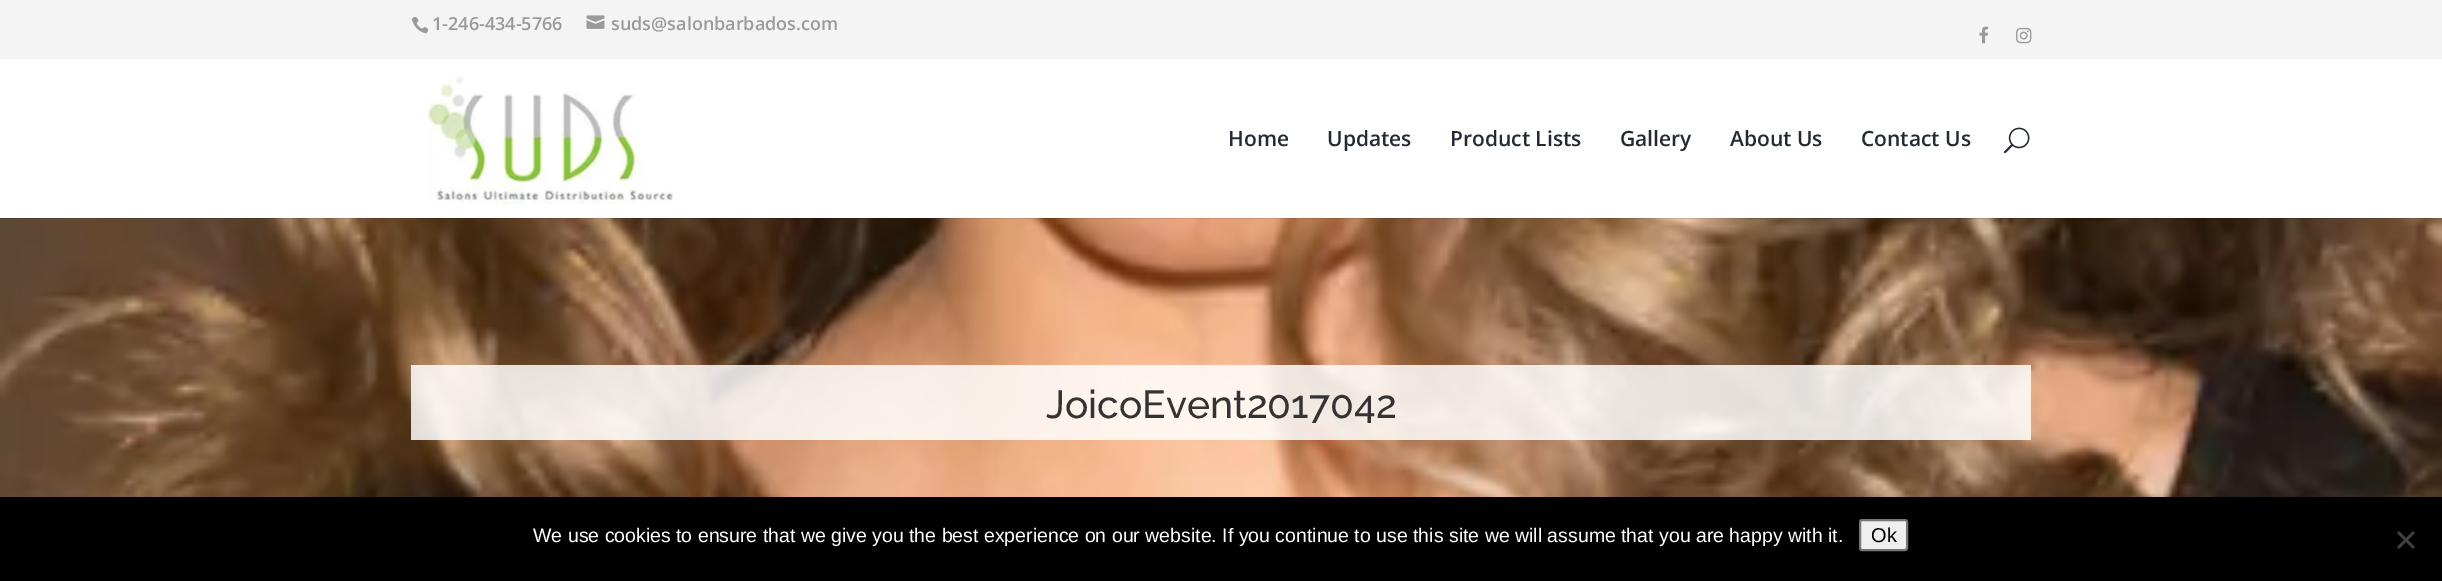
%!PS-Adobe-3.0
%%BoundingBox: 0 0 2442 581
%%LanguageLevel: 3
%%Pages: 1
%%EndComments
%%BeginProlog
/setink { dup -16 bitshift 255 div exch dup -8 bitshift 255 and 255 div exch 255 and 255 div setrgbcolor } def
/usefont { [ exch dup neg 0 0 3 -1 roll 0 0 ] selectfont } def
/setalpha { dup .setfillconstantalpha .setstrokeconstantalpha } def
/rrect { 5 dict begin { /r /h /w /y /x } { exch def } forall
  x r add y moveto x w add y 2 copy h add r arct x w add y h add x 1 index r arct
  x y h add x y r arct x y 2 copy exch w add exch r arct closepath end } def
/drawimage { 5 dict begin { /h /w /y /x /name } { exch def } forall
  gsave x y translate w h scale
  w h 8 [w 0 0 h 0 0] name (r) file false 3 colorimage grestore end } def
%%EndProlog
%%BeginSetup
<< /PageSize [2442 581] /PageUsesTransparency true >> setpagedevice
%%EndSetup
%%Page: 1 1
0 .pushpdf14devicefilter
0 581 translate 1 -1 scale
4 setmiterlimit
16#FFFFFF setink
0 0 2442 581 rectfill
16#F4F4F4 setink
0 0 2442 59 rectfill
(img1.raw) 411 16 18 18 drawimage
/OpenSans-SemiBold 18 usefont
16#9A9A9A setink
432 30 moveto (1-246-434-5766) show
(img2.raw) 586 15 19 14 drawimage
611 30 moveto (suds@salonbarbados.com) show
(img3.raw) 1979 26 10 18 drawimage
(img4.raw) 2016 27 16 17 drawimage
(img7.raw) 0 218 2442 279 drawimage
0.1 setalpha
16#000000 setink
0 218 2442 1 rectfill
1 setalpha
(img5.raw) 427 76 246 129 drawimage
/OpenSans-SemiBold 21 usefont
16#232A34 setink
[
    [(Home) 1228 146]
    [(Updates) 1327 146]
    [(Product Lists) 1450 146]
    [(Gallery) 1620 146]
    [(About Us) 1730 146]
    [(Contact Us) 1861 146]
] { aload pop moveto show } forall
(img6.raw) 2003 127 27 27 drawimage
0.84 setalpha
16#FFFFFF setink
411 365 1620 75 rectfill
/Raleway-Medium 39 usefont
1 setalpha
16#333333 setink
1046 418 moveto (JoicoEvent2017042) show
16#000000 setink
0 497 2442 84 rectfill
/LiberationSans-Regular 19.5 usefont
16#FFFFFF setink
533 542 moveto (We use cookies to ensure that we give you the best experience on our website. If you continue to use this site we will assume that you are happy with it.) show
16#EFEFEF setink
1860 520 47 30 2 rrect gsave fill grestore
16#767676 setink
2 setlinewidth
stroke
/LiberationSans-Regular 20 usefont
16#000000 setink
1871 542 moveto (Ok) show
16#404040 setink
2413 531 moveto 2415 533 lineto 2399 549 lineto 2397 547 lineto closepath fill
2397 533 moveto 2399 531 lineto 2415 547 lineto 2413 549 lineto closepath fill
.poppdf14devicefilter showpage
%%EOF
